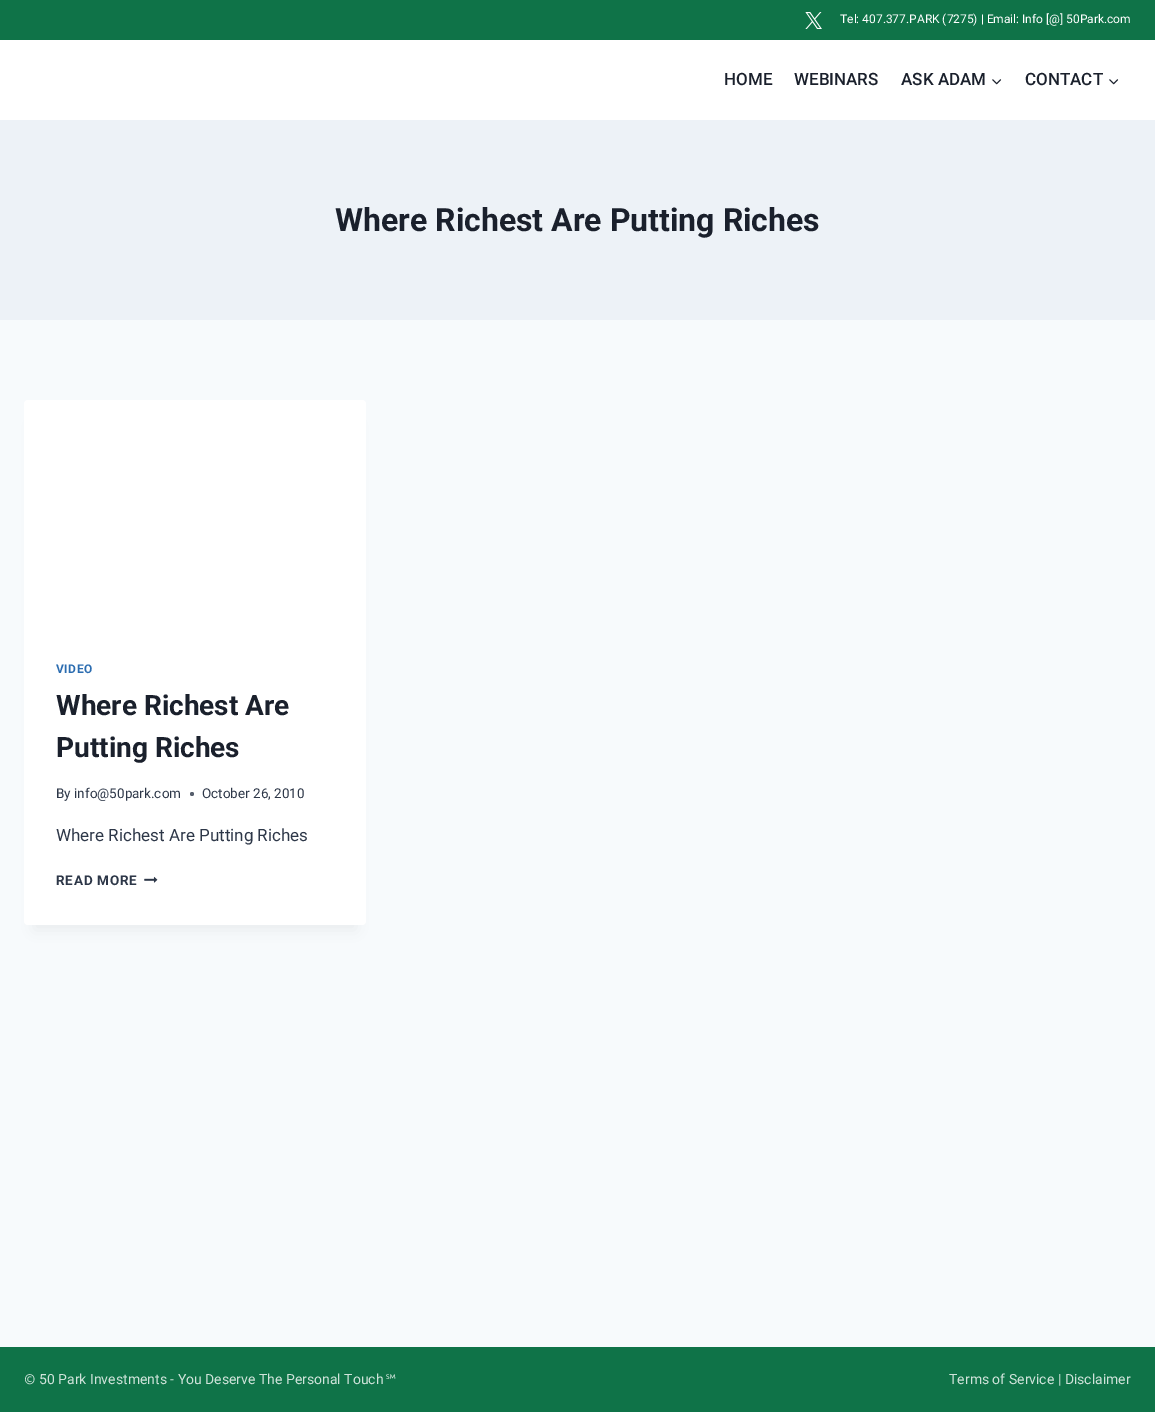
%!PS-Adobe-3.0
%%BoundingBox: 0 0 1155 1412
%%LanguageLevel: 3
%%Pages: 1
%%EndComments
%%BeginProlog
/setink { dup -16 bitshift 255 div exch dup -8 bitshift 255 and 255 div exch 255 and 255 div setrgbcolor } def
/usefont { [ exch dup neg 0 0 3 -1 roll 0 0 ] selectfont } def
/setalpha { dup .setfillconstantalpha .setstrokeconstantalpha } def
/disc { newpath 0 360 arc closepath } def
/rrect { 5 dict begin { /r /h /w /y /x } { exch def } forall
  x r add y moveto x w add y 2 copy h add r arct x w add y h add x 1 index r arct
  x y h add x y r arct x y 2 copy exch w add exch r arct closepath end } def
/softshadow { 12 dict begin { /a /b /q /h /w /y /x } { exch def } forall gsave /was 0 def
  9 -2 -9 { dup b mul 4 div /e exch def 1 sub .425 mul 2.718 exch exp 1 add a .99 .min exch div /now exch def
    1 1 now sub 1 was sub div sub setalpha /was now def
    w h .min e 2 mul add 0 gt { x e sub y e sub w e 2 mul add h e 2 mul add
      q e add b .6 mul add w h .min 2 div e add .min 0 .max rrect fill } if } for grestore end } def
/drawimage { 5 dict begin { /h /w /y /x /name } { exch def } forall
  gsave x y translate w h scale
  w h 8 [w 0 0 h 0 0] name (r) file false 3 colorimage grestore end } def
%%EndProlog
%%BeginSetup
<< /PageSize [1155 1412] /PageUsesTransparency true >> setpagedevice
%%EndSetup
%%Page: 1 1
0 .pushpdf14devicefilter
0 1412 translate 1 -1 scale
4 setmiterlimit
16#F7FAFC setink
0 0 1155 1412 rectfill
16#FFFFFF setink
0 40 1155 80 rectfill
16#0F7348 setink
0 0 1155 40 rectfill
(img1.raw) 805 12 17 17 drawimage
/Roboto-Regular 12 usefont
16#FFFFFF setink
840 23 moveto (Tel: 407.377.PARK \(7275\) | Email: Info [@] 50Park.com) show
/Roboto-Medium 17 usefont
16#1A202C setink
[
    [(HOME) 724 85]
    [(WEBINARS) 794 85]
    [(ASK ADAM) 901 85]
] { aload pop moveto show } forall
(img2.raw) 992 79 10 6 drawimage
1025 85 moveto (CONTACT) show
(img2.raw) 1109 79 10 6 drawimage
16#EDF2F7 setink
0 120 1155 200 rectfill
/Roboto-Bold 32 usefont
16#1A202C setink
335 231 moveto (Where Richest Are Putting Riches) show
16#000000 setink
34 425 322 505 0 7.5 0.05 softshadow
16#FFFFFF setink
24 400 342 525 4 rrect fill
/Roboto-Bold 12 usefont
16#2B6CB0 setink
56 673 moveto 0.5 0 (VIDEO) ashow
/Roboto-Bold 28 usefont
16#1A202C setink
56 715 moveto (Where Richest Are) show
56 757 moveto (Putting Riches) show
/Roboto-Regular 13.5 usefont
16#2D3748 setink
56 798 moveto (By info@50park.com) show
16#575F6D setink
192 794 2 disc fill
16#2D3748 setink
202 798 moveto (October 26, 2010) show
/Roboto-Regular 17 usefont
56 841 moveto (Where Richest Are Putting Riches) show
/Roboto-Bold 13.5 usefont
56 885 moveto 0.75 0 (READ MORE) ashow
(img3.raw) 144 876 14 7 drawimage
16#0F7348 setink
0 1347 1155 65 rectfill
/Ubuntu-Regular 14 usefont
16#CFE3DA setink
24 1384 moveto (©) show
/Roboto-Regular 14 usefont
39 1384 moveto (50 Park Investments - You Deserve The Personal Touch) show
/Ubuntu-Regular 14 usefont
386 1384 moveto (℠) show
/Roboto-Regular 14 usefont
949 1384 moveto (Terms of Service | Disclaimer) show
.poppdf14devicefilter showpage
%%EOF
